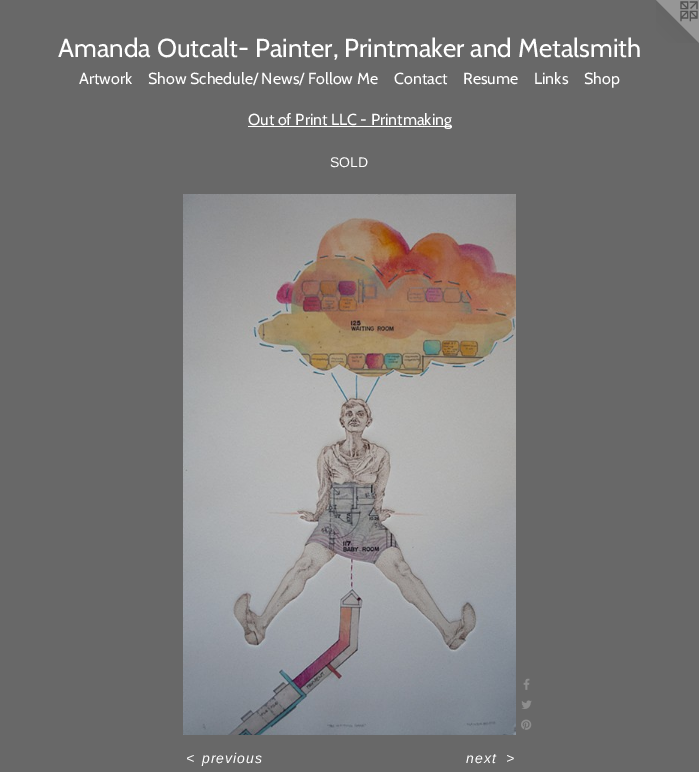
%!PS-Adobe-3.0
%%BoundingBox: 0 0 699 772
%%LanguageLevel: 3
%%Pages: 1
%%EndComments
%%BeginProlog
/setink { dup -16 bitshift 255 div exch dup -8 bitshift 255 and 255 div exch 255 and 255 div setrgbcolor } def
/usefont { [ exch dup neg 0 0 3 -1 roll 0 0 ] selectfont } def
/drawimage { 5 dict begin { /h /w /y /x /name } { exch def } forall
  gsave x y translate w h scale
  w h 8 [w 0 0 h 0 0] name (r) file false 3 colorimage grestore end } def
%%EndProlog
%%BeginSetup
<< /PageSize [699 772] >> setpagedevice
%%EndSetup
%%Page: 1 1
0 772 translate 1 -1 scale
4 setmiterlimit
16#686868 setink
0 0 699 772 rectfill
(img1.raw) 656 0 43 43 drawimage
/Cabin-Regular 26 usefont
16#FFFFFF setink
58 57 moveto (Amanda Outcalt- Painter, Printmaker and Metalsmith) show
/Cabin-Regular 16 usefont
[
    [(Artwork) 79 84]
    [(Show Schedule/ News/ Follow Me) 148 84]
    [(Contact) 394 84]
    [(Resume) 463 84]
    [(Links) 534 84]
    [(Shop) 584 84]
] { aload pop moveto show } forall
248 126 203 1 rectfill
248 125 moveto (Out of Print LLC - Printmaking) show
/LiberationSans-Regular 14 usefont
330 167 moveto (SOLD) show
(img2.raw) 183 194 333 541 drawimage
(img3.raw) 523 678 7 12 drawimage
(img4.raw) 521 700 11 9 drawimage
(img5.raw) 521 719 11 11 drawimage
/LiberationSans-Italic 14 usefont
186 763 moveto 1 0 (<) ashow
202 763 moveto 1 0 (previous) ashow
466 763 moveto 1 0 (next) ashow
506 763 moveto 1 0 (>) ashow
showpage
%%EOF
